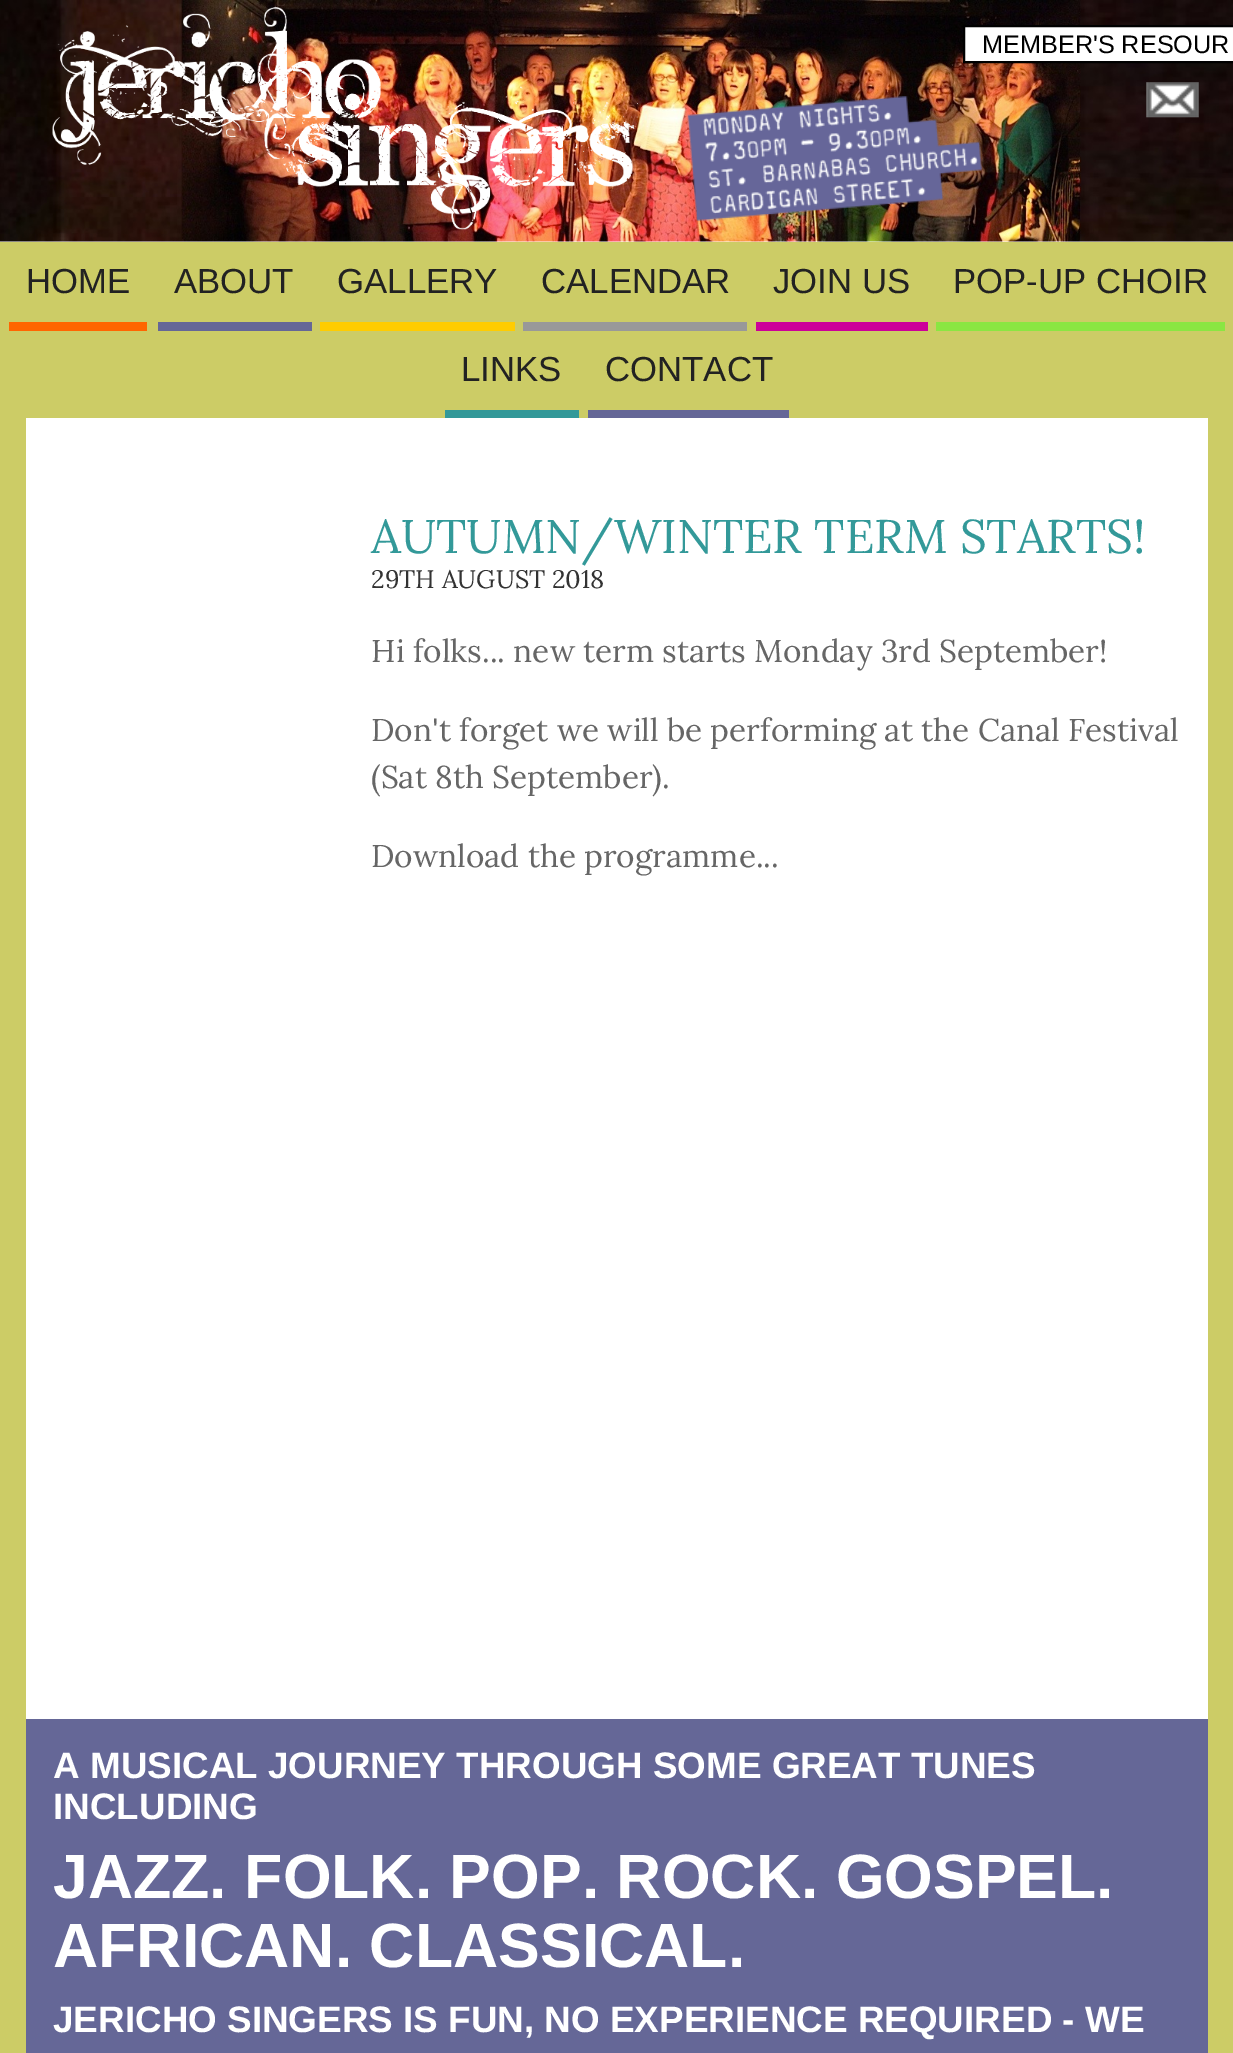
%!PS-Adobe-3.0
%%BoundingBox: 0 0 1233 2053
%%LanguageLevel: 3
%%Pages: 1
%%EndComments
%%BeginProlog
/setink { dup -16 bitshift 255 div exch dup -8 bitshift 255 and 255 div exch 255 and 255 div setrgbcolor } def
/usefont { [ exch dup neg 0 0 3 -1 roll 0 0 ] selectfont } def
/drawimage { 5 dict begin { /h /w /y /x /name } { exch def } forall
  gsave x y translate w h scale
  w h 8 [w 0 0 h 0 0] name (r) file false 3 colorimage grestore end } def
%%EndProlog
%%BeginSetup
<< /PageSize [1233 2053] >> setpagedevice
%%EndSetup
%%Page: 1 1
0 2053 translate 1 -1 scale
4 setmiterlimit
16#CCCC66 setink
0 0 1233 2053 rectfill
16#FFFFFF setink
0 241 1233 1 rectfill
(img1.raw) 0 0 1233 242 drawimage
(img2.raw) 52 7 596 223 drawimage
964 26 moveto 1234 26 lineto 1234 62 lineto 964 62 lineto closepath gsave fill grestore
16#000000 setink
2 setlinewidth
stroke
/LiberationSans-Regular 25.25 usefont
982 53 moveto (MEMBER'S RESOUR) show
(img3.raw) 1146 82 53 36 drawimage
(img4.raw) 687 96 295 125 drawimage
16#FF6600 setink
9 322 138 9 rectfill
/LiberationSans-Regular 34.75 usefont
16#222222 setink
26 293 moveto (HOME) show
16#656797 setink
158 322 154 9 rectfill
16#222222 setink
174 293 moveto (ABOUT) show
16#FFCC00 setink
320 322 195 9 rectfill
16#222222 setink
337 293 moveto (GALLERY) show
16#999999 setink
523 322 224 9 rectfill
16#222222 setink
541 293 moveto (CALENDAR) show
16#CC0099 setink
756 322 172 9 rectfill
16#222222 setink
773 293 moveto (JOIN US) show
16#8AE642 setink
936 322 289 9 rectfill
16#222222 setink
953 293 moveto (POP-UP CHOIR) show
16#339999 setink
445 410 134 8 rectfill
16#222222 setink
461 381 moveto (LINKS) show
16#656797 setink
588 410 201 8 rectfill
16#222222 setink
605 381 moveto (CONTACT) show
16#FFFFFF setink
26 418 1182 1301 rectfill
/Lora-Regular 47.25 usefont
16#339999 setink
371 553 moveto (AUTUMN/WINTER TERM STARTS!) show
/Lora-Regular 25.25 usefont
16#333333 setink
371 588 moveto (29TH AUGUST 2018) show
/Lora-Regular 31.5 usefont
16#666666 setink
[
    [(Hi folks... new term starts Monday 3rd September!) 371 662]
    [(Don't forget we will be performing at the Canal Festival) 371 741]
    [(\(Sat 8th September\).) 371 788]
    [(Download the programme...) 371 867]
] { aload pop moveto show } forall
16#656797 setink
26 1719 1182 334 rectfill
/LiberationSans-Bold 36.85 usefont
16#FFFFFF setink
53 1778 moveto (A MUSICAL JOURNEY THROUGH SOME GREAT TUNES) show
53 1819 moveto (INCLUDING) show
/LiberationSans-Bold 62.6 usefont
53 1898 moveto (JAZZ. FOLK. POP. ROCK. GOSPEL.) show
53 1967 moveto (AFRICAN. CLASSICAL.) show
/LiberationSans-Bold 36.85 usefont
53 2032 moveto (JERICHO SINGERS IS FUN, NO EXPERIENCE REQUIRED - WE) show
showpage
%%EOF
